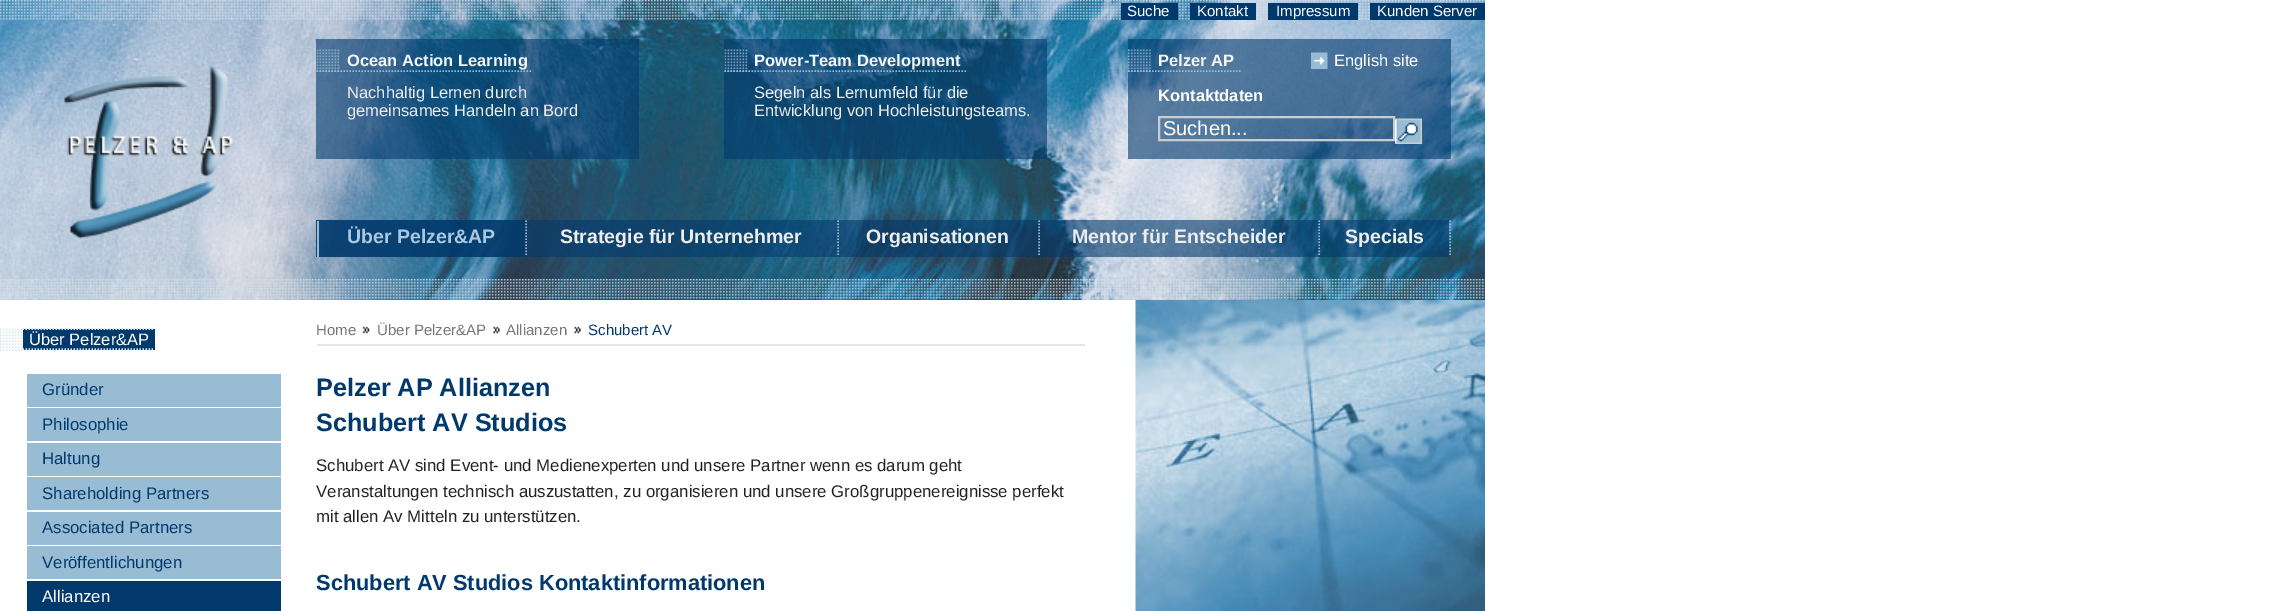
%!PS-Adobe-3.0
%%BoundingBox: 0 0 2283 611
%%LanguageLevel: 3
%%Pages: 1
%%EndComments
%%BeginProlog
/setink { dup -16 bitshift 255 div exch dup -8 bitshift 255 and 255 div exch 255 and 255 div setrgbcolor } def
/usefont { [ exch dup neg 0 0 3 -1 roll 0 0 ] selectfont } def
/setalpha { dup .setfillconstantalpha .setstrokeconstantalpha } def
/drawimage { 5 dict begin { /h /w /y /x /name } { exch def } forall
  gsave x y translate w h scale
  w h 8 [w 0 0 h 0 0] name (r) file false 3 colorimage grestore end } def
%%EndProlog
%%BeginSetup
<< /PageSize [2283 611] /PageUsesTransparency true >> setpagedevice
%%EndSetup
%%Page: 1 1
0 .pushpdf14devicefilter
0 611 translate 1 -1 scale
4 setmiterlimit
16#FFFFFF setink
0 0 2283 611 rectfill
(img1.raw) 0 0 1485 300 drawimage
(img2.raw) 0 0 1485 20 drawimage
16#01396C setink
1121 3 57 17 rectfill
/LiberationSans-Regular 15 usefont
16#FFFFFF setink
1127 16 moveto (Suche) show
16#01396C setink
1190 3 66 17 rectfill
16#FFFFFF setink
1197 16 moveto (Kontakt) show
16#01396C setink
1268 3 90 17 rectfill
16#FFFFFF setink
1276 16 moveto (Impressum) show
16#01396C setink
1370 3 115 17 rectfill
16#FFFFFF setink
1377 16 moveto (Kunden Server) show
(img3.raw) 64 66 169 173 drawimage
0.6 setalpha
16#02396C setink
316 39 323 120 rectfill
1 setalpha
(img4.raw) 316 49 24 23 drawimage
/LiberationSans-Bold 16.5 usefont
16#F3F7F8 setink
347 66 moveto (Ocean Action Learning) show
16#98BCD3 setink
1.5 setlinewidth
[1.5 1.5] 0 setdash
316.5 71 moveto 532.5 71 lineto stroke
/LiberationSans-Regular 16.5 usefont
16#EDEDED setink
347 98 moveto (Nachhaltig Lernen durch) show
347 116 moveto (gemeinsames Handeln an Bord) show
0.6 setalpha
16#02396C setink
724 39 323 120 rectfill
1 setalpha
(img5.raw) 724 49 24 23 drawimage
/LiberationSans-Bold 16.5 usefont
16#F3F7F8 setink
754 66 moveto (Power-Team Development) show
16#98BCD3 setink
724.5 71 moveto 966 71 lineto stroke
/LiberationSans-Regular 16.5 usefont
16#EDEDED setink
754 98 moveto (Segeln als Lernumfeld für die) show
754 116 moveto (Entwicklung von Hochleistungsteams.) show
0.6 setalpha
16#02396C setink
1128 39 323 120 rectfill
1 setalpha
(img6.raw) 1128 49 23 23 drawimage
/LiberationSans-Bold 16.5 usefont
16#F3F7F8 setink
1158 66 moveto (Pelzer AP) show
16#98BCD3 setink
1128 71 moveto 1240.5 71 lineto stroke
(img7.raw) 1311 52 17 17 drawimage
/LiberationSans-Regular 16.5 usefont
16#FFFFFF setink
1334 66 moveto (English site) show
/LiberationSans-Bold 16.5 usefont
1158 101 moveto (Kontaktdaten) show
16#CCCCCC setink
2 setlinewidth
[] 0 setdash
1159 117 235 23 rectstroke
/LiberationSans-Regular 20 usefont
16#FFFFFF setink
1163 135 moveto (Suchen...) show
(img8.raw) 1395 118 27 26 drawimage
16#98BCD3 setink
1.5 setlinewidth
[1.5 1.5] 0 setdash
1450 220.5 moveto 1450 256.5 lineto stroke
0.9 setalpha
16#01396C setink
316 220 209 37 rectfill
1 setalpha
16#98BCD3 setink
317 221 2 36 rectfill
/LiberationSans-Bold 19.5 usefont
16#A9C9E2 setink
347 243 moveto (Über Pelzer&AP) show
0.6 setalpha
16#02396C setink
525 220 312 37 rectfill
1 setalpha
16#98BCD3 setink
526 220.5 moveto 526 256.5 lineto stroke
16#EDEDED setink
560 243 moveto (Strategie für Unternehmer) show
0.6 setalpha
16#02396C setink
837 220 201 37 rectfill
1 setalpha
16#98BCD3 setink
838 220.5 moveto 838 256.5 lineto stroke
16#EDEDED setink
866 243 moveto (Organisationen) show
0.6 setalpha
16#02396C setink
1038 220 281 37 rectfill
1 setalpha
16#98BCD3 setink
1039 220.5 moveto 1039 256.5 lineto stroke
16#EDEDED setink
1072 243 moveto (Mentor für Entscheider) show
0.6 setalpha
16#02396C setink
1318 220 131 37 rectfill
1 setalpha
16#98BCD3 setink
1319 220.5 moveto 1319 256.5 lineto stroke
16#EDEDED setink
1345 243 moveto (Specials) show
(img9.raw) 0 279 1485 20 drawimage
(img10.raw) 0 328 23 23 drawimage
16#003A6C setink
23 329 132 21 rectfill
/LiberationSans-Regular 16.5 usefont
16#FFFFFF setink
29 345 moveto (Über Pelzer&AP) show
16#D2DFE8 setink
22.5 329 moveto 154.5 329 lineto stroke
22.5 349 moveto 154.5 349 lineto stroke
16#98BCD3 setink
27 374 254 33 rectfill
/LiberationSans-Regular 16.8 usefont
16#01396C setink
42 395 moveto (Gründer) show
16#98BCD3 setink
27 408 254 33 rectfill
16#01396C setink
42 430 moveto (Philosophie) show
16#98BCD3 setink
27 443 254 33 rectfill
16#01396C setink
42 464 moveto (Haltung) show
16#98BCD3 setink
27 477 254 33 rectfill
16#01396C setink
42 499 moveto (Shareholding Partners) show
16#98BCD3 setink
27 512 254 33 rectfill
16#01396C setink
42 533 moveto (Associated Partners) show
16#98BCD3 setink
27 546 254 33 rectfill
16#01396C setink
42 568 moveto (Veröffentlichungen) show
27 581 254 30 rectfill
16#FFFFFF setink
42 602 moveto (Allianzen) show
16#E5E5E5 setink
317 344 768 2 rectfill
/LiberationSans-Regular 15 usefont
16#767676 setink
316 335 moveto (Home) show
(img11.raw) 362 326 8 8 drawimage
377 335 moveto (Über Pelzer&AP) show
(img12.raw) 493 326 7 8 drawimage
506 335 moveto (Allianzen) show
(img13.raw) 574 326 7 8 drawimage
16#01396C setink
588 335 moveto (Schubert AV) show
/LiberationSans-Bold 25.25 usefont
316 396 moveto (Pelzer AP Allianzen) show
316 431 moveto (Schubert AV Studios) show
/LiberationSans-Regular 16.8 usefont
16#222222 setink
[
    [(Schubert AV sind Event- und Medienexperten und unsere Partner wenn es darum geht) 316 471]
    [(Veranstaltungen technisch auszustatten, zu organisieren und unsere Großgruppenereignisse perfekt) 316 497]
    [(mit allen Av Mitteln zu unterstützen.) 316 522]
] { aload pop moveto show } forall
/LiberationSans-Bold 21.8 usefont
16#01396C setink
316 590 moveto (Schubert AV Studios Kontaktinformationen) show
(img14.raw) 1135 300 350 311 drawimage
.poppdf14devicefilter showpage
%%EOF
